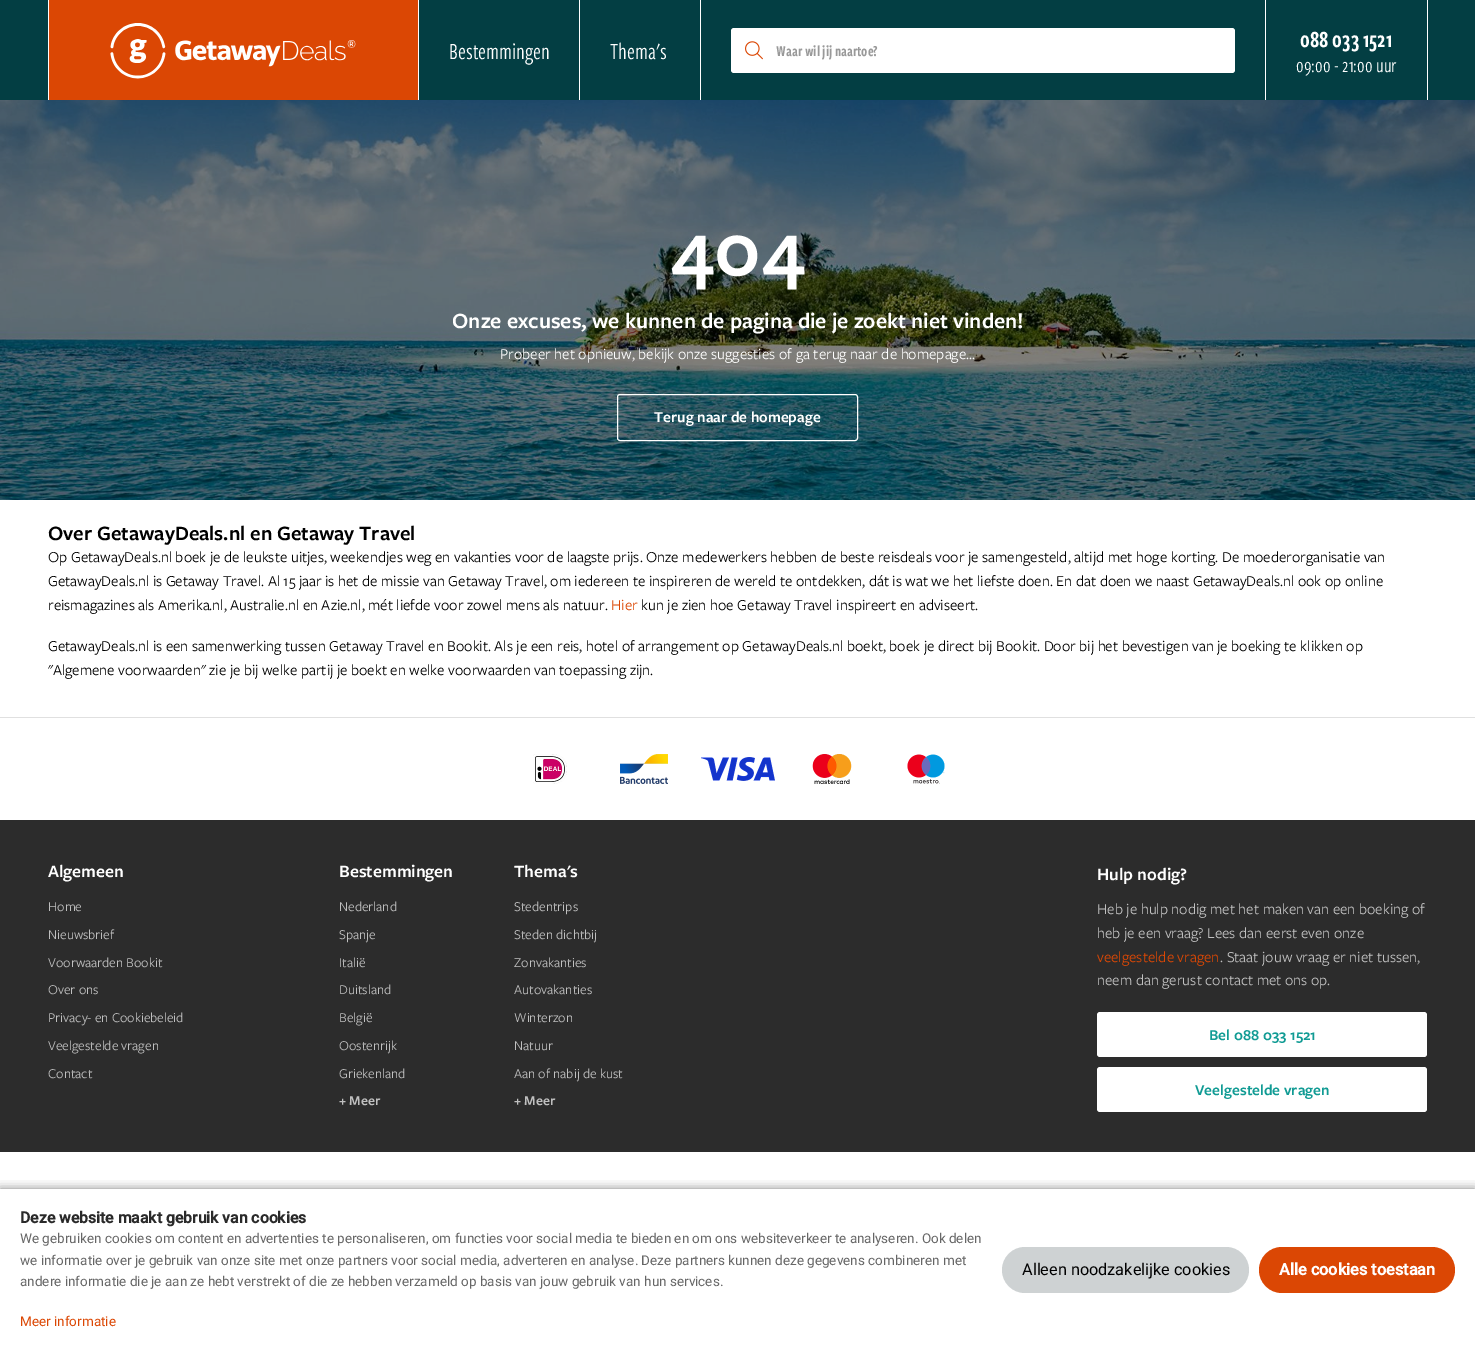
%!PS-Adobe-3.0
%%BoundingBox: 0 0 1475 1351
%%LanguageLevel: 3
%%Pages: 1
%%EndComments
%%BeginProlog
/setink { dup -16 bitshift 255 div exch dup -8 bitshift 255 and 255 div exch 255 and 255 div setrgbcolor } def
/usefont { [ exch dup neg 0 0 3 -1 roll 0 0 ] selectfont } def
/setalpha { dup .setfillconstantalpha .setstrokeconstantalpha } def
/rrect { 5 dict begin { /r /h /w /y /x } { exch def } forall
  x r add y moveto x w add y 2 copy h add r arct x w add y h add x 1 index r arct
  x y h add x y r arct x y 2 copy exch w add exch r arct closepath end } def
/softshadow { 12 dict begin { /a /b /q /h /w /y /x } { exch def } forall gsave /was 0 def
  9 -2 -9 { dup b mul 4 div /e exch def 1 sub .425 mul 2.718 exch exp 1 add a .99 .min exch div /now exch def
    1 1 now sub 1 was sub div sub setalpha /was now def
    w h .min e 2 mul add 0 gt { x e sub y e sub w e 2 mul add h e 2 mul add
      q e add b .6 mul add w h .min 2 div e add .min 0 .max rrect fill } if } for grestore end } def
/drawimage { 5 dict begin { /h /w /y /x /name } { exch def } forall
  gsave x y translate w h scale
  w h 8 [w 0 0 h 0 0] name (r) file false 3 colorimage grestore end } def
%%EndProlog
%%BeginSetup
<< /PageSize [1475 1351] /PageUsesTransparency true >> setpagedevice
%%EndSetup
%%Page: 1 1
0 .pushpdf14devicefilter
0 1351 translate 1 -1 scale
4 setmiterlimit
16#FFFFFF setink
0 0 1475 1351 rectfill
[
    [0 0 1475 100 16#033E43]
    [48 0 1 100 16#FFFFFF]
    [49 0 369 100 16#DB4704]
] { aload pop setink rectfill } forall
(img1.raw) 110 23 246 56 drawimage
16#FFFFFF setink
418 0 1 100 rectfill
579 0 1 100 rectfill
/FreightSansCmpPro-Regular 24 usefont
449 59 moveto (Bestemmingen) show
610 59 moveto (Thema's) show
700 0 1 100 rectfill
731 28 504 45 3 rrect fill
(img2.raw) 745 41 18 19 drawimage
/FreightSansCmpPro-SemiBold 15.75 usefont
16#999999 setink
776 56 moveto (Waar wil jij naartoe?) show
16#FFFFFF setink
1427 0 1 100 rectfill
1265 0 1 100 rectfill
/FreightSansCmpPro-SemiBold 24 usefont
1300 47 moveto (088 033 1521) show
/FreightSansCmpPro-Regular 21 usefont
1296 72 moveto (09:00 - 21:00 uur) show
(img3.raw) 0 100 1475 400 drawimage
/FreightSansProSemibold-SemiBold 81 usefont
670 275 moveto (404) show
/FreightSansProSemibold-SemiBold 22.5 usefont
452 328 moveto (Onze excuses, we kunnen de pagina die je zoekt niet vinden!) show
/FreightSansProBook-Regular 15.75 usefont
500 359 moveto (Probeer het opnieuw, bekijk onze suggesties of ga terug naar de homepage...) show
617.5 394.5 240 46 2.5 rrect stroke
/FreightSansProSemibold-SemiBold 15.75 usefont
654 422 moveto (Terug naar de homepage) show
/FreightSansProSemibold-SemiBold 21.1 usefont
16#000000 setink
48 540 moveto (Over GetawayDeals.nl en Getaway Travel) show
/FreightSansProBook-Regular 15.75 usefont
[
    [(Op GetawayDeals.nl boek je de leukste uitjes, weekendjes weg en vakanties voor de laagste prijs. Onze medewerkers hebben de beste reisdeals voor je samengesteld, altijd met hoge korting. De moederorganisatie van) 48 562]
    [(GetawayDeals.nl is Getaway Travel. Al 15 jaar is het de missie van Getaway Travel, om iedereen te inspireren de wereld te ontdekken, dát is wat we het liefste doen. En dat doen we naast GetawayDeals.nl ook op online) 48 586]
    [(reismagazines als Amerika.nl, Australie.nl en Azie.nl, mét liefde voor zowel mens als natuur.) 48 610]
] { aload pop moveto show } forall
16#DB4704 setink
611 610 moveto (Hier) show
16#000000 setink
[
    [(kun je zien hoe Getaway Travel inspireert en adviseert.) 641 610]
    [(GetawayDeals.nl is een samenwerking tussen Getaway Travel en Bookit. Als je een reis, hotel of arrangement op GetawayDeals.nl boekt, boek je direct bij Bookit. Door bij het bevestigen van je boeking te klikken op) 48 651]
    [("Algemene voorwaarden" zie je bij welke partij je boekt en welke voorwaarden van toepassing zijn.) 48 675]
] { aload pop moveto show } forall
16#E0E0E0 setink
0 717 1475 1 rectfill
(img4.raw) 533 754 34 30 drawimage
(img5.raw) 620 754 48 30 drawimage
(img6.raw) 701 757 74 24 drawimage
(img7.raw) 812 754 40 30 drawimage
(img8.raw) 907 754 38 30 drawimage
16#2C2C2C setink
0 820 1475 332 rectfill
/FreightSansProSemibold-SemiBold 18 usefont
16#FFFFFF setink
48 877 moveto (Algemeen) show
/FreightSansProBook-Regular 14 usefont
16#C0C0C0 setink
[
    [(Home) 48 911]
    [(Nieuwsbrief) 48 939]
    [(Voorwaarden Bookit) 48 967]
    [(Over ons) 48 994]
    [(Privacy- en Cookiebeleid) 48 1022]
    [(Veelgestelde vragen) 48 1050]
    [(Contact) 48 1078]
] { aload pop moveto show } forall
/FreightSansProSemibold-SemiBold 18 usefont
16#FFFFFF setink
339 877 moveto (Bestemmingen) show
/FreightSansProBook-Regular 14 usefont
16#C0C0C0 setink
[
    [(Nederland) 339 911]
    [(Spanje) 339 939]
    [(Italië) 339 967]
    [(Duitsland) 339 994]
    [(België) 339 1022]
    [(Oostenrijk) 339 1050]
    [(Griekenland) 339 1078]
] { aload pop moveto show } forall
/FreightSansProSemibold-SemiBold 14 usefont
339 1105 moveto (+ Meer) show
/FreightSansProSemibold-SemiBold 18 usefont
16#FFFFFF setink
514 877 moveto (Thema's) show
/FreightSansProBook-Regular 14 usefont
16#C0C0C0 setink
[
    [(Stedentrips) 514 911]
    [(Steden dichtbij) 514 939]
    [(Zonvakanties) 514 967]
    [(Autovakanties) 514 994]
    [(Winterzon) 514 1022]
    [(Natuur) 514 1050]
    [(Aan of nabij de kust) 514 1078]
] { aload pop moveto show } forall
/FreightSansProSemibold-SemiBold 14 usefont
514 1105 moveto (+ Meer) show
/FreightSansProSemibold-SemiBold 18 usefont
16#FFFFFF setink
1097 880 moveto (Hulp nodig?) show
/FreightSansProBook-Regular 15.75 usefont
16#C0C0C0 setink
1097 914 moveto (Heb je hulp nodig met het maken van een boeking of) show
1097 938 moveto (heb je een vraag? Lees dan eerst even onze) show
16#DB4704 setink
1097 962 moveto (veelgestelde vragen) show
16#C0C0C0 setink
1220 962 moveto (. Staat jouw vraag er niet tussen,) show
1097 985 moveto (neem dan gerust contact met ons op.) show
16#FFFFFF setink
1097 1012 330 45 3 rrect fill
/FreightSansProSemibold-SemiBold 15.75 usefont
16#119B94 setink
1209 1040 moveto (Bel 088 033 1521) show
16#FFFFFF setink
1097 1067 330 45 3 rrect fill
16#119B94 setink
1195 1095 moveto (Veelgestelde vragen) show
gsave
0 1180 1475 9 rectclip
16#000000 setink
0 1189 1475 162 0 5 0.5 softshadow
grestore
/Roboto-Bold 15.75 usefont
16#2A2A2A setink
20 1223 moveto (Deze website maakt gebruik van cookies) show
/Roboto-Regular 13.5 usefont
16#666666 setink
[
    [(We gebruiken cookies om content en advertenties te personaliseren, om functies voor social media te bieden en om ons websiteverkeer te analyseren. Ook delen) 20 1243]
    [(we informatie over je gebruik van onze site met onze partners voor social media, adverteren en analyse. Deze partners kunnen deze gegevens combineren met) 20 1265]
    [(andere informatie die je aan ze hebt verstrekt of die ze hebben verzameld op basis van jouw gebruik van hun services.) 20 1286]
] { aload pop moveto show } forall
16#DB4704 setink
20 1326 moveto (Meer informatie) show
16#CED2D3 setink
1002 1247 247 46 23 rrect fill
/Roboto-Regular 16.25 usefont
16#000000 setink
1022 1275 moveto (Alleen noodzakelijke cookies) show
16#DB4704 setink
1259 1247 196 46 23 rrect fill
/Roboto-Bold 16.25 usefont
16#FFFFFF setink
1279 1275 moveto (Alle cookies toestaan) show
.poppdf14devicefilter showpage
%%EOF
